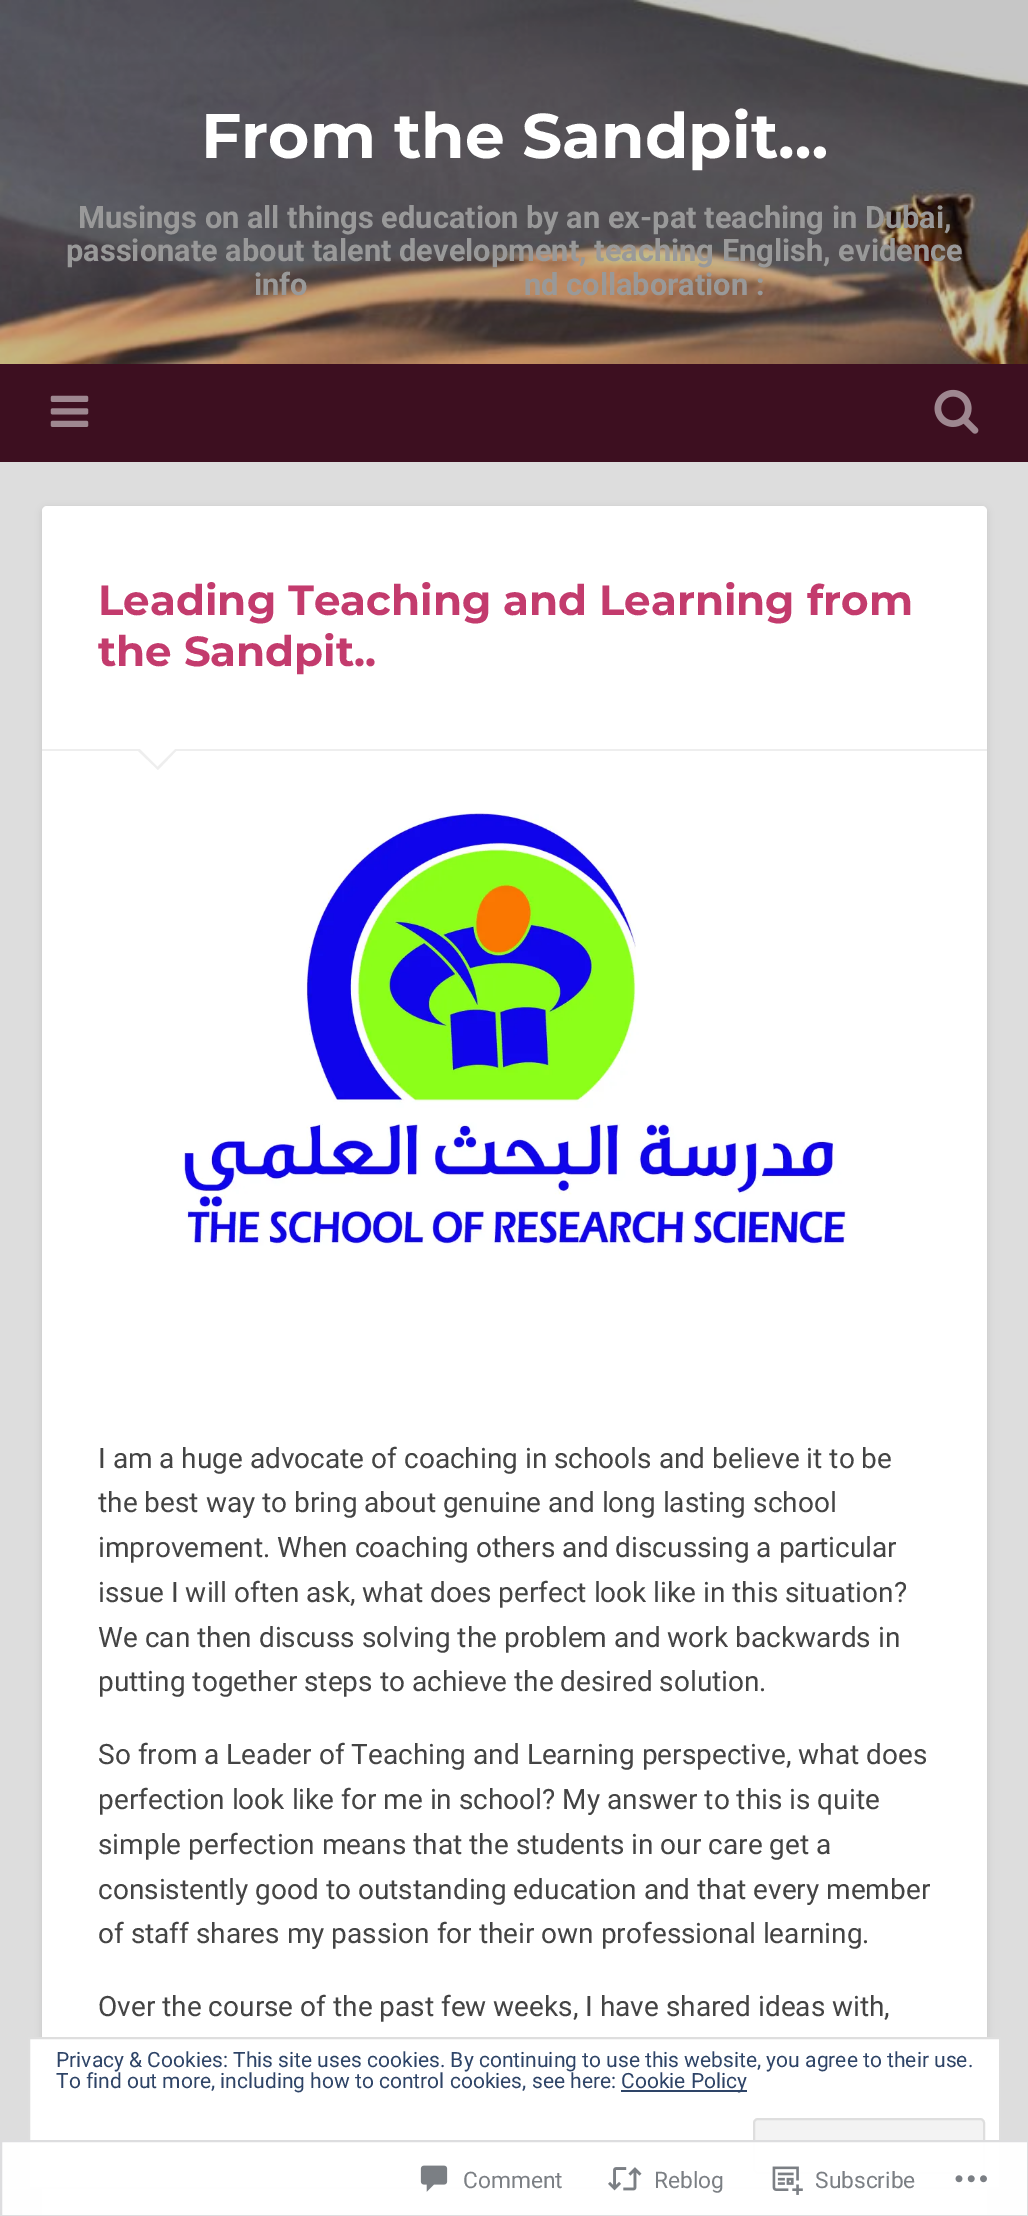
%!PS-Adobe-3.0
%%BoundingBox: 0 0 1028 2216
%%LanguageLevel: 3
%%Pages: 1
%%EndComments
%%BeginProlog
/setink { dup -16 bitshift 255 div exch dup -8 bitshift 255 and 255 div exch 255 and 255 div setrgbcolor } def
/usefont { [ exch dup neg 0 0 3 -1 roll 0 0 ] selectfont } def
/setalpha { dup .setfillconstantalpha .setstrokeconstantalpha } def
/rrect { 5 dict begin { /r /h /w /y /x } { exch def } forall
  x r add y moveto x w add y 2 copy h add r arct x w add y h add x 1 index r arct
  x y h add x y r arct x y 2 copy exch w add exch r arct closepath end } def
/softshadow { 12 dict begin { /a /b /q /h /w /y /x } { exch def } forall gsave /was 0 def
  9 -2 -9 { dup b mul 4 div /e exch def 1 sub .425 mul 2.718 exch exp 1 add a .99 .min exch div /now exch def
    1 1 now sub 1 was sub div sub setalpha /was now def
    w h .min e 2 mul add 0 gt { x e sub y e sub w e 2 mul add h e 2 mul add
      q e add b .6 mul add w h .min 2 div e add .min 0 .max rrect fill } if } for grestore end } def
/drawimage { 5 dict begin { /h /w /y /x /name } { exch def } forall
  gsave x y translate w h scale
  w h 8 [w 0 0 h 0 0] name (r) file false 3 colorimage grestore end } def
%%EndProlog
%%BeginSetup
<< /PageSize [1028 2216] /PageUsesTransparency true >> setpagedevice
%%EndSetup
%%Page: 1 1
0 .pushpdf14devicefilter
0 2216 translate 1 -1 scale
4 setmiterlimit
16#DDDDDD setink
0 0 1028 2216 rectfill
(img1.raw) 0 0 1028 364 drawimage
/Montserrat-Thin 63 usefont
16#FFFFFF setink
201 158 moveto (From the Sandpit…) show
/Roboto-Bold 30.8 usefont
16#999999 setink
[
    [(Musings on all things education by an ex-pat teaching in Dubai,) 78 228]
    [(passionate about talent development, teaching English, evidence) 66 261]
    [(info) 254 295]
    [(nd collaboration :) 524 295]
] { aload pop moveto show } forall
16#3D0F20 setink
0 364 1028 98 rectfill
(img2.raw) 50 395 39 32 drawimage
(img3.raw) 934 389 45 45 drawimage
16#000000 setink
42 508 945 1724 5 3.5 0.1 softshadow
16#FFFFFF setink
42 506 945 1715 5 rrect fill
16#EEEEEE setink
42 749 945 2 rectfill
/Montserrat-Thin 42 usefont
16#C33B6D setink
98 615 moveto (Leading Teaching and Learning from) show
98 666 moveto (the Sandpit..) show
16#EEEEEE setink
136 749 moveto 178 749 lineto 158 770 lineto closepath fill
16#FFFFFF setink
138 747 moveto 177 747 lineto 157.5 766.5 lineto closepath fill
(img4.raw) 183 810 665 436 drawimage
/Roboto-Regular 28 usefont
16#444444 setink
[
    [(I am a huge advocate of coaching in schools and believe it to be) 98 1468]
    [(the best way to bring about genuine and long lasting school) 98 1512]
    [(improvement. When coaching others and discussing a particular) 98 1557]
    [(issue I will often ask, what does perfect look like in this situation?) 98 1602]
    [(We can then discuss solving the problem and work backwards in) 98 1647]
    [(putting together steps to achieve the desired solution.) 98 1691]
    [(So from a Leader of Teaching and Learning perspective, what does) 98 1764]
    [(perfection look like for me in school? My answer to this is quite) 98 1809]
    [(simple perfection means that the students in our care get a) 98 1854]
    [(consistently good to outstanding education and that every member) 98 1899]
    [(of staff shares my passion for their own professional learning.) 98 1943]
    [(Over the course of the past few weeks, I have shared ideas with,) 98 2016]
] { aload pop moveto show } forall
16#FFFFFF setink
29 2038 moveto 1000 2038 lineto 1000 2188 lineto 29 2188 lineto closepath gsave fill grestore
16#DEDEDE setink
2 setlinewidth
stroke
/Roboto-Regular 21 usefont
16#2E4467 setink
56 2067 moveto (Privacy & Cookies: This site uses cookies. By continuing to use this website, you agree to their use.) show
56 2088 moveto (To find out more, including how to control cookies, see here:) show
621 2090 126 2 rectfill
621 2088 moveto (Cookie Policy) show
16#F3F3F3 setink
754 2119 230 54 4 rrect gsave fill grestore
16#DEDEDE setink
stroke
0.98 setalpha
16#FFFFFF setink
0 2140 1028 76 rectfill
16#DCDCDE setink
1 2141 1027 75 rectstroke
1 setalpha
(img5.raw) 420 2165 28 27 drawimage
/Roboto-Regular 22.75 usefont
16#7B7F84 setink
463 2188 moveto (Comment) show
(img6.raw) 608 2167 34 24 drawimage
654 2188 moveto (Reblog) show
(img7.raw) 772 2166 31 29 drawimage
815 2188 moveto (Subscribe) show
(img8.raw) 955 2175 32 8 drawimage
.poppdf14devicefilter showpage
%%EOF
